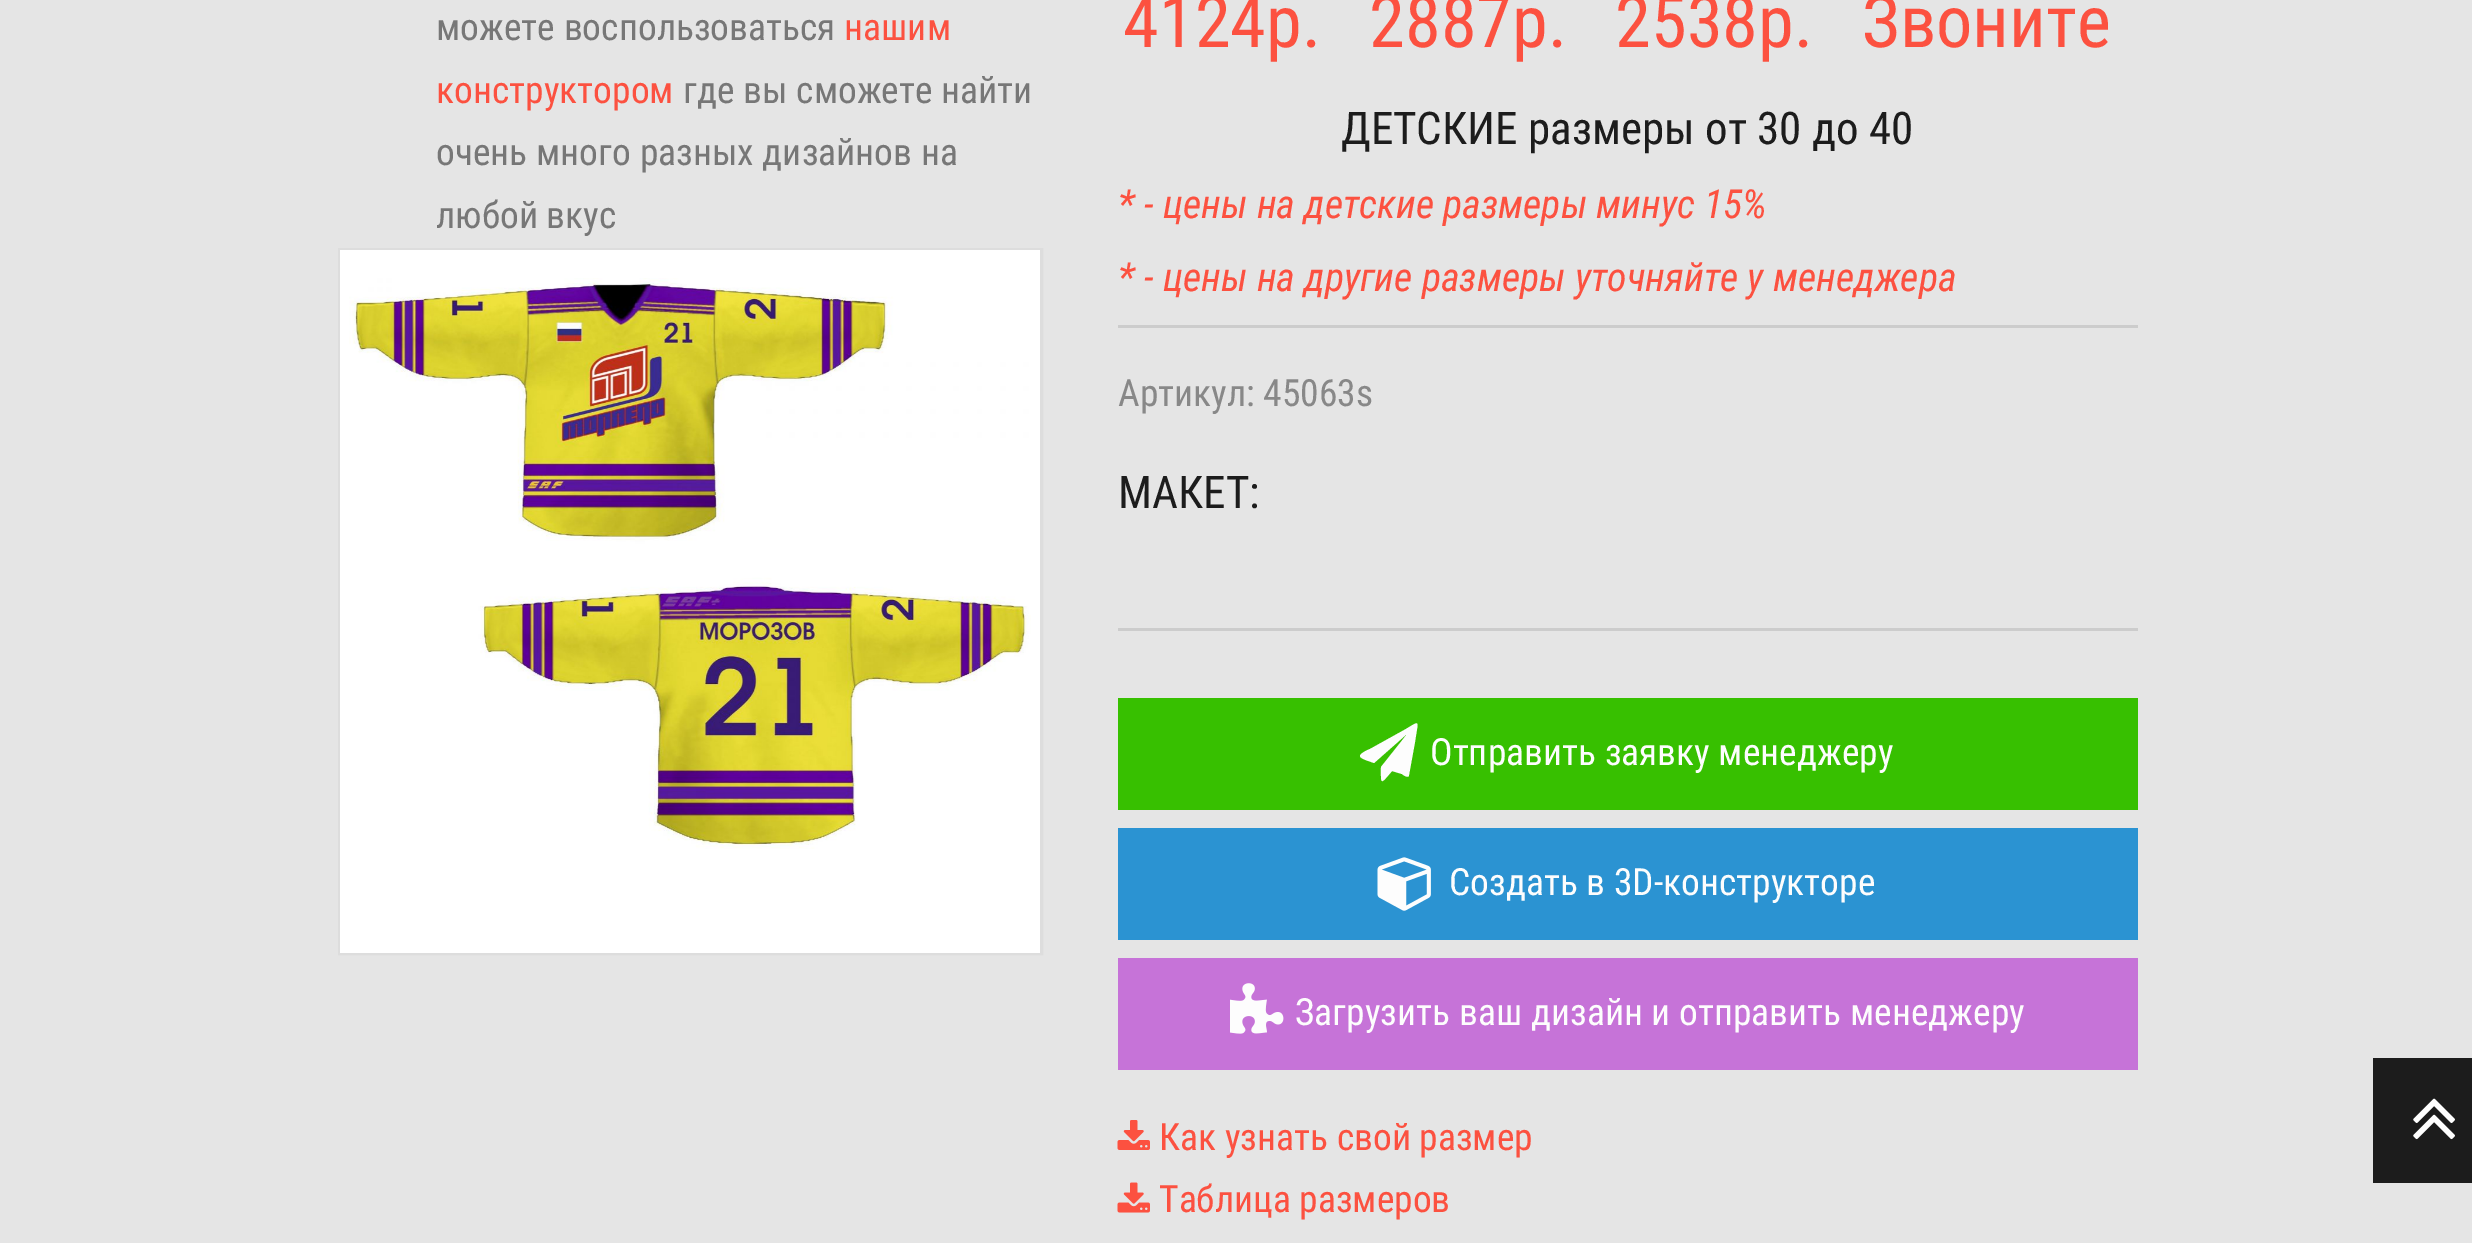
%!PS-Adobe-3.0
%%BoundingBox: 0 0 2472 1243
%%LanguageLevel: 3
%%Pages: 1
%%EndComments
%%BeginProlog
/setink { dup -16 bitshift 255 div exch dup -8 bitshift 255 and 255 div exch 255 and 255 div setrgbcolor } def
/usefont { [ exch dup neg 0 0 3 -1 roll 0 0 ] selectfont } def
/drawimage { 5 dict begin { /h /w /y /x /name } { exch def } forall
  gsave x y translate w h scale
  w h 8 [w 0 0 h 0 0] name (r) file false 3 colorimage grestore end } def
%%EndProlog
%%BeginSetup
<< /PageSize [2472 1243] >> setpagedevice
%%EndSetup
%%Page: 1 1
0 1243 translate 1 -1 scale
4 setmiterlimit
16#E5E5E5 setink
0 0 2472 1243 rectfill
/RobotoCondensed-Regular 37.5 usefont
16#777777 setink
436 40 moveto (можете воспользоваться) show
16#FC5140 setink
844 40 moveto (нашим) show
436 103 moveto (конструктором) show
16#777777 setink
[
    [(где вы сможете найти) 683 103]
    [(очень много разных дизайнов на) 436 165]
    [(любой вкус) 436 228]
] { aload pop moveto show } forall
16#DDDDDD setink
3 setlinewidth
339.5 249.5 702 704 rectstroke
16#FFFFFF setink
340 250 700 703 rectfill
(img1.raw) 349 278 682 571 drawimage
16#CCCCCC setink
1118 325 1020 3 rectfill
/RobotoCondensed-Regular 72.5 usefont
16#FC5140 setink
[
    [(4124р.) 1123 47]
    [(2887р.) 1369 47]
    [(2538р.) 1615 47]
    [(Звоните) 1862 47]
] { aload pop moveto show } forall
/RobotoCondensed-Regular 45 usefont
16#1C1C1C setink
1341 144 moveto (ДЕТСКИЕ размеры от 30 до 40) show
/RobotoCondensed-Italic 40 usefont
16#FC5140 setink
1118 218 moveto (* - цены на детские размеры минус 15%) show
1118 291 moveto (* - цены на другие размеры уточняйте у менеджера) show
16#CCCCCC setink
1118 628 1020 3 rectfill
/RobotoCondensed-Regular 37.5 usefont
16#888888 setink
1118 406 moveto (Артикул: 45063s) show
/RobotoCondensed-Regular 45 usefont
16#1C1C1C setink
1118 508 moveto (МАКЕТ:) show
16#37C000 setink
1118 698 1020 112 rectfill
16#FDFDFD setink
1360 756 moveto 1360 753 1370 749 1370 749 curveto 1406 729 lineto 1421 720 1418 720 1415 742 curveto 1409 775 lineto 1409 779 1403 775 1402 774 curveto 1392 771 lineto 1380 785 1381 785 1381 767 curveto 1408 733 lineto 1374 763 lineto 1372 762 1360 759 1360 756 curveto closepath fill
/RobotoCondensed-Regular 37.5 usefont
1430 765 moveto (Отправить заявку менеджеру) show
16#2B93D2 setink
1118 828 1020 112 rectfill
(img2.raw) 1377 857 54 54 drawimage
16#FDFDFD setink
1449 895 moveto (Создать в 3D-конструкторе) show
16#C673D8 setink
1118 958 1020 112 rectfill
(img3.raw) 1230 983 54 51 drawimage
16#FDFDFD setink
1295 1025 moveto (Загрузить ваш дизайн и отправить менеджеру) show
(img4.raw) 1117 1120 33 30 drawimage
16#FC5140 setink
1159 1150 moveto (Как узнать свой размер) show
(img5.raw) 1117 1182 33 31 drawimage
1159 1212 moveto (Таблица размеров) show
16#1C1C1C setink
2373 1058 99 125 rectfill
(img6.raw) 2413 1098 42 42 drawimage
showpage
%%EOF
